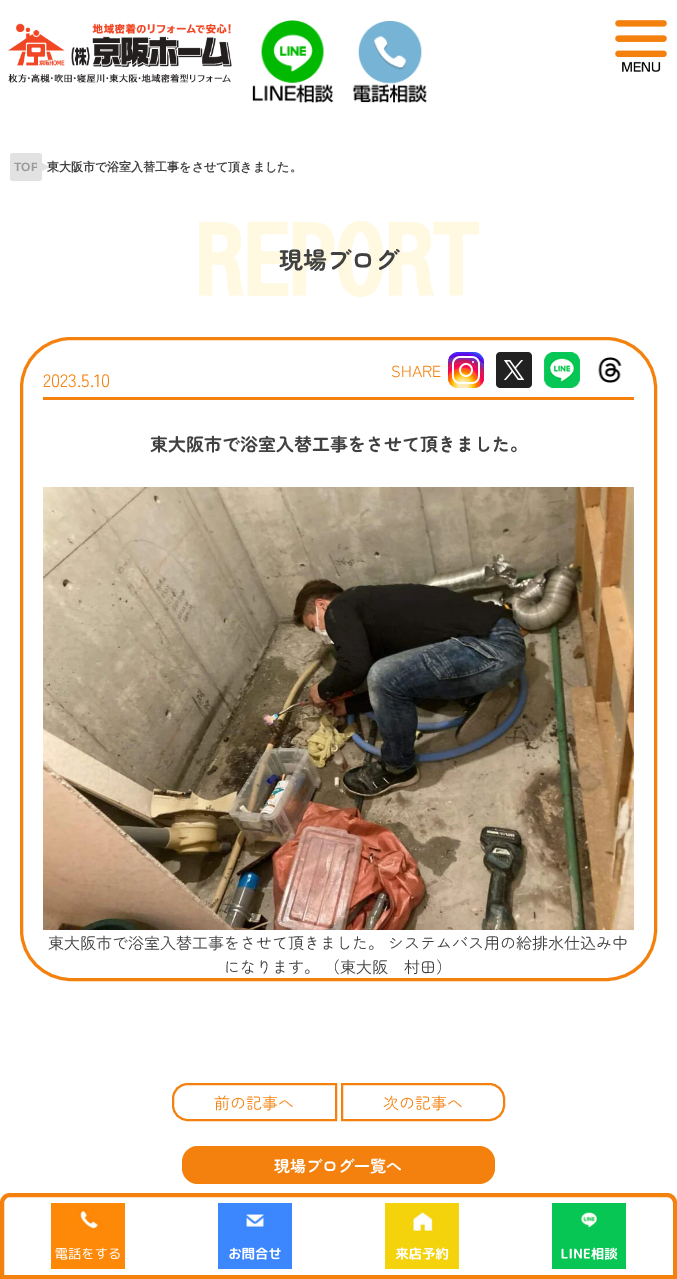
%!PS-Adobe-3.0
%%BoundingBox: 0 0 677 1279
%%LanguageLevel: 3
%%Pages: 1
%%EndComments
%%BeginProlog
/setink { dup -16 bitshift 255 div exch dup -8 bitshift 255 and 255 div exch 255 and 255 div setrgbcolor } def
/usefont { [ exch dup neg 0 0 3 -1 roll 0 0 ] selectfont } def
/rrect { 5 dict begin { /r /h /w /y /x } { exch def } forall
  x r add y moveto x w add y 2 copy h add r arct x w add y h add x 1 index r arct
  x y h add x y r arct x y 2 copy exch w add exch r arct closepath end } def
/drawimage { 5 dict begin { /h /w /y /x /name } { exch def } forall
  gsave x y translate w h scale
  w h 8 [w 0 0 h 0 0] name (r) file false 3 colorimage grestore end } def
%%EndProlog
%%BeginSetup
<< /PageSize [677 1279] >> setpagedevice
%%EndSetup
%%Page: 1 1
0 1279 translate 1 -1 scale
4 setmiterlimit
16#FFFFFF setink
0 0 677 1279 rectfill
(img1.raw) 8 23 224 60 drawimage
(img2.raw) 252 20 82 83 drawimage
(img3.raw) 352 21 75 82 drawimage
(img4.raw) 615 20 52 52 drawimage
16#E2E2E2 setink
10 153 32 28 3 rrect fill
/LiberationSans-Bold 12 usefont
16#9B9B9B setink
14 171 moveto (TOP) show
16#E2E2E2 setink
37 174 moveto 37 160 lineto 49 167 lineto closepath fill
/WenQuanYiZenHei-Bold 12 usefont
16#404040 setink
47 171 moveto (東大阪市で浴室入替工事をさせて頂きました。) show
(img5.raw) 199 221 280 76 drawimage
/ZenMaruGothic-Bold 24 usefont
279 269 moveto (現場ブログ) show
16#F4810E setink
3 setlinewidth
21.5 338.5 634 641 49.5 rrect stroke
43 397 591 3 rectfill
/ZenMaruGothic-Regular 16 usefont
391 377 moveto (SHARE) show
(img6.raw) 448 352 36 36 drawimage
(img7.raw) 496 352 36 36 drawimage
(img8.raw) 544 352 36 36 drawimage
(img9.raw) 598 354 24 32 drawimage
/ZenMaruGothic-Regular 18 usefont
43 387 moveto (2023.5.10) show
/ZenMaruGothic-Bold 18 usefont
16#404040 setink
150 451 moveto (東大阪市で浴室入替工事をさせて頂きました。) show
(img10.raw) 43 487 591 443 drawimage
/ZenMaruGothic-Regular 16 usefont
48 949 moveto (東大阪市で浴室入替工事をさせて頂きました。 システムバス用の給排水仕込み中) show
224 973 moveto (になります。 （東大阪　村田）) show
16#F4810E setink
2 setlinewidth
188 1084 moveto 336 1084 lineto 336 1120 lineto 188 1120 lineto 179.5 1120 173 1113.5 173 1105 curveto 173 1099 lineto 173 1090.5 179.5 1084 188 1084 curveto closepath stroke
214 1109 moveto (前の記事へ) show
342 1084 moveto 489 1084 lineto 497.5 1084 504 1090.5 504 1099 curveto 504 1105 lineto 504 1113.5 497.5 1120 489 1120 curveto 342 1120 lineto closepath stroke
383 1109 moveto (次の記事へ) show
182 1146 313 38 16 rrect fill
/ZenMaruGothic-Bold 16 usefont
16#FFFFFF setink
274 1172 moveto (現場ブログ一覧へ) show
16#F4810E setink
4 setlinewidth
10 1195 moveto 667 1195 lineto 671.5 1195 675 1198.5 675 1203 curveto 675 1277 lineto 2 1277 lineto 2 1203 lineto 2 1198.5 5.5 1195 10 1195 curveto closepath stroke
(img11.raw) 51 1203 74 66 drawimage
(img12.raw) 218 1203 74 66 drawimage
(img13.raw) 385 1203 74 66 drawimage
(img14.raw) 552 1203 74 66 drawimage
showpage
%%EOF
